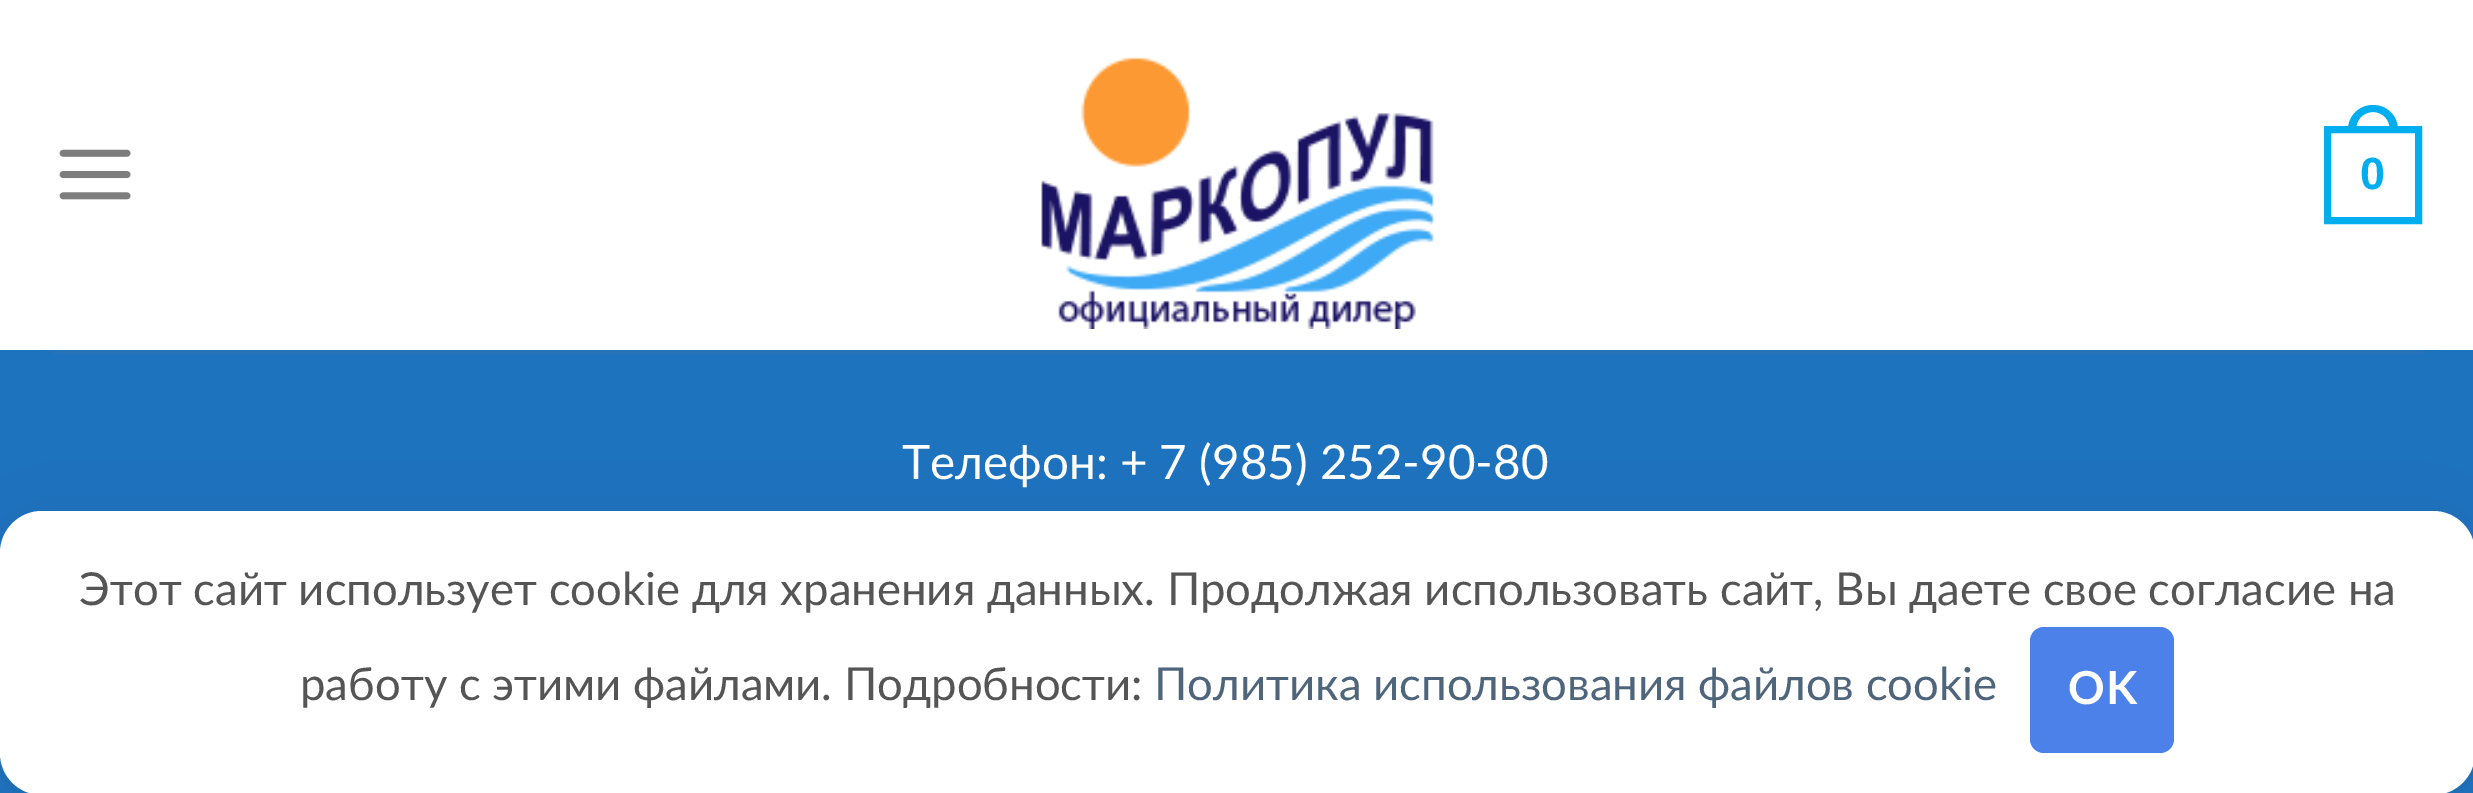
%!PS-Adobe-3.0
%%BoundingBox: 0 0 2473 793
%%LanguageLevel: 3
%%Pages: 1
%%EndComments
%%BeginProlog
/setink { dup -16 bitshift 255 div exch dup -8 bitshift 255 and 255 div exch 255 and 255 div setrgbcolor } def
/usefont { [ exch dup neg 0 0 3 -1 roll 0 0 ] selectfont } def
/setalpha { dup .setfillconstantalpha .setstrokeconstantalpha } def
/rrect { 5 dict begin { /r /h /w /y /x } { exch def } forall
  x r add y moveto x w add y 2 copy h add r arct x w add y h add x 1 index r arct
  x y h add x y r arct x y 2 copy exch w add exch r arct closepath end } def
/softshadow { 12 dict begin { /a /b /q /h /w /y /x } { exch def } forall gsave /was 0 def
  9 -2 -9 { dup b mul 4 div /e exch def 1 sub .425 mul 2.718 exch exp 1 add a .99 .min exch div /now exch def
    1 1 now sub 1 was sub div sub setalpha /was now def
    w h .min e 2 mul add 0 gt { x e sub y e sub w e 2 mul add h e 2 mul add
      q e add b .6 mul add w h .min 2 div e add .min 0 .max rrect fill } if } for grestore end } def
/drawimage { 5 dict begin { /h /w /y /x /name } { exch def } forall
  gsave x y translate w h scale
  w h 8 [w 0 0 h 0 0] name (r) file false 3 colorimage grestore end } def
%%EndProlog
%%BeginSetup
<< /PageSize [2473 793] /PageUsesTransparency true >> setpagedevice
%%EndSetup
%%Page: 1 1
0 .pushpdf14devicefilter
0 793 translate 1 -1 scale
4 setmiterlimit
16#FFFFFF setink
0 0 2473 793 rectfill
(img1.raw) 59 149 72 51 drawimage
(img2.raw) 1041 57 393 272 drawimage
16#00ADEE setink
7 setlinewidth
2327.5 129.5 91 91 rectstroke
2373 105 moveto 2387 105 2398 116 2398 130 curveto 2398 133 lineto 2348 133 lineto 2348 130 lineto 2348 116 2359 105 2373 105 curveto closepath 2373 112 moveto 2383 112 2390 120 2390 130 curveto 2390 133 lineto 2356 133 lineto 2356 130 lineto 2356 120 2363 112 2373 112 curveto closepath eofill
/LiberationSans-Bold 45 usefont
2360 189 moveto (0) show
16#1E73BE setink
0 350 2473 443 rectfill
16#2773B7 setink
53 350 2369 4 rectfill
/Lato-Regular 47.6 usefont
16#FFFFFF setink
902 479 moveto (Телефон: + 7 \(985\) 252-90-80) show
16#292C38 setink
18 539 2439 249 25 35 0.2 softshadow
16#FFFFFF setink
0 511 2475 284 42 rrect fill
/Lato-Regular 45.5 usefont
16#555555 setink
79 605 moveto (Этот сайт использует cookie для хранения данных. Продолжая использовать сайт, Вы даете свое согласие на) show
300 700 moveto (работу с этими файлами. Подробности:) show
16#4E657B setink
1154 700 moveto (Политика использования файлов cookie) show
16#4B81E8 setink
2030 627 144 126 14 rrect fill
/Lato-Bold 45.5 usefont
16#FFFFFF setink
2068 704 moveto 1 0 (OK) ashow
.poppdf14devicefilter showpage
%%EOF
